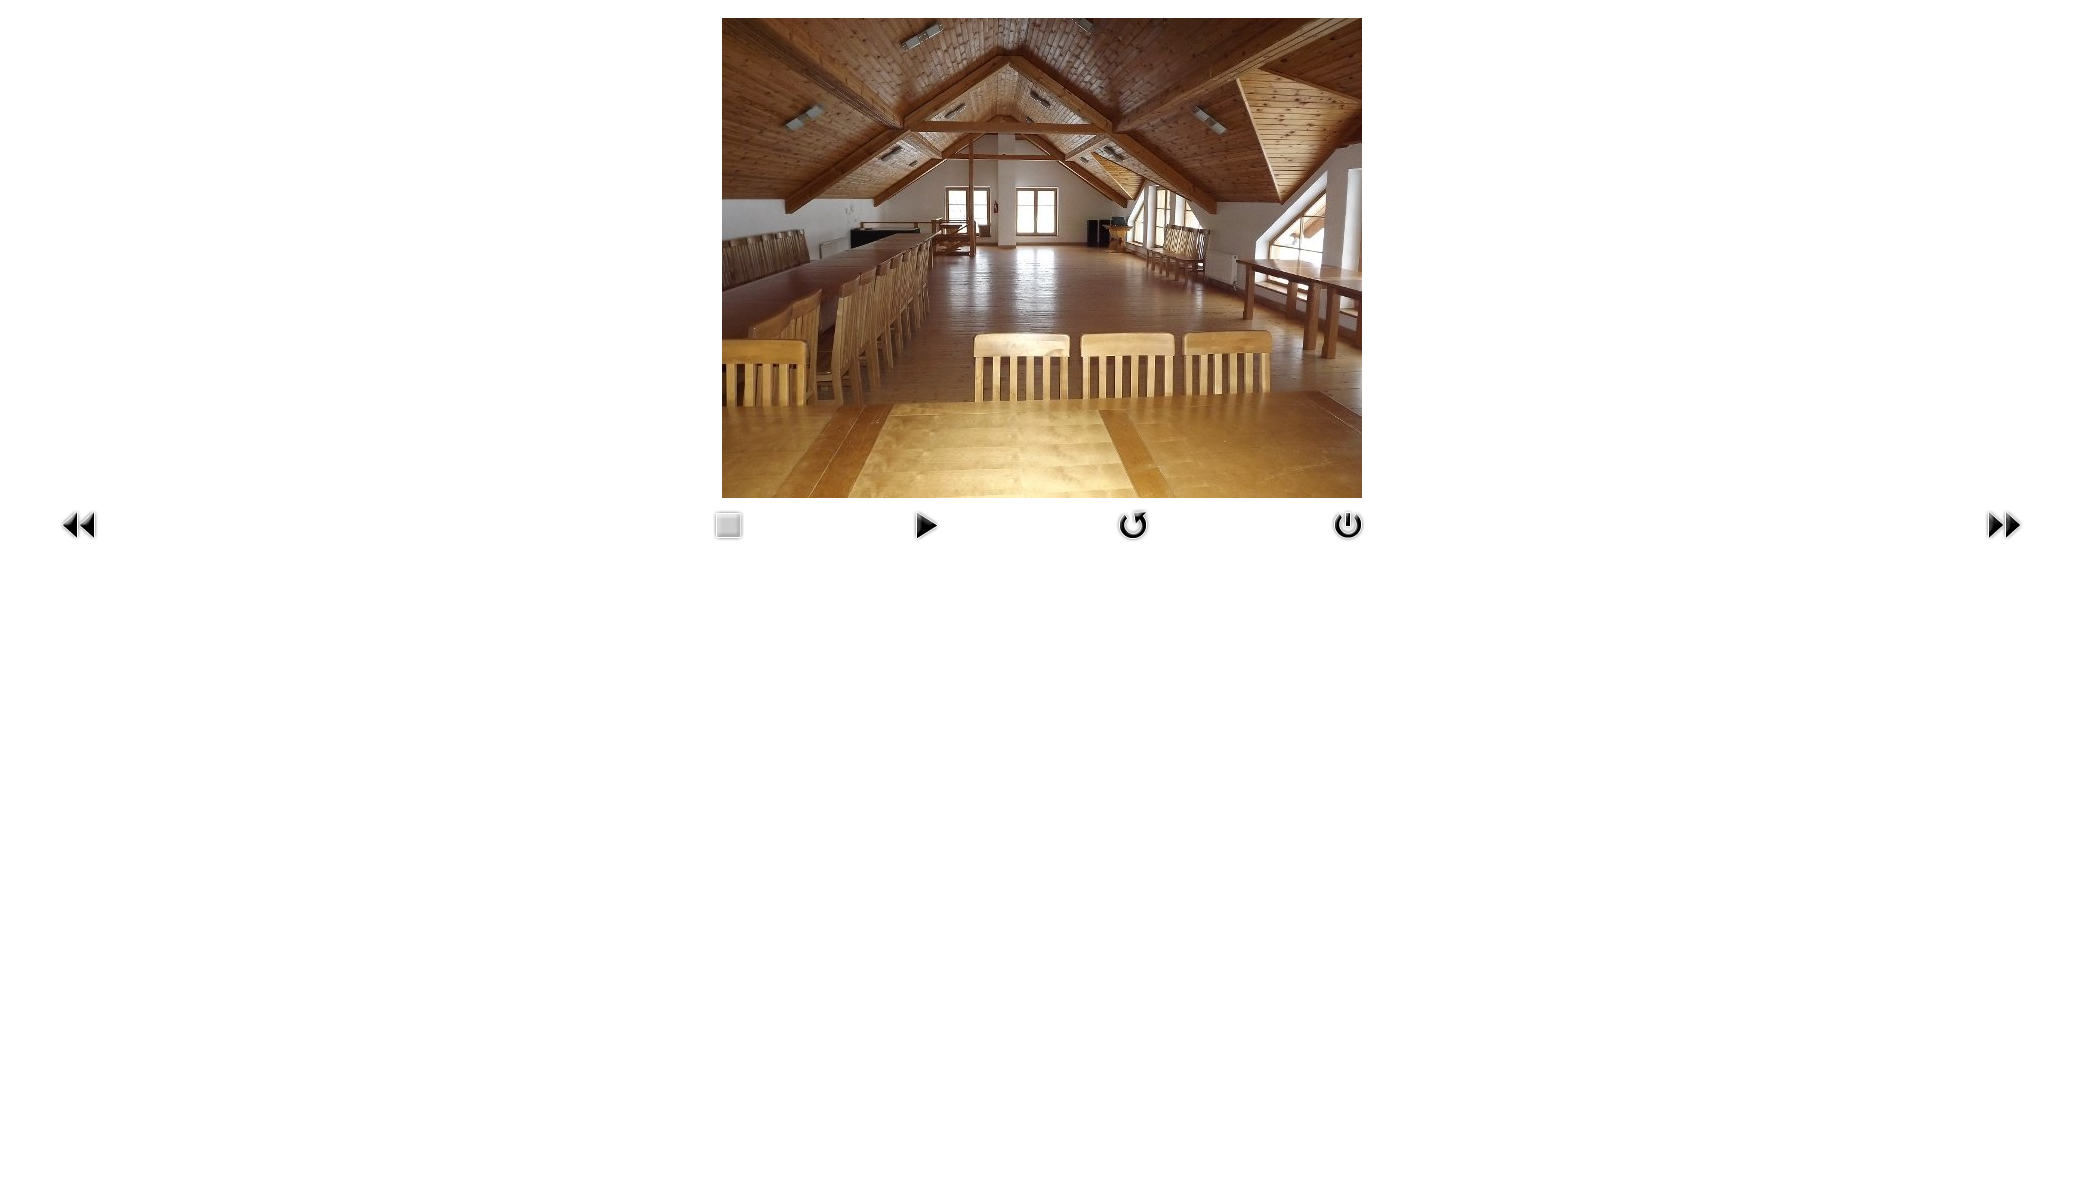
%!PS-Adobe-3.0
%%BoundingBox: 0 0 2084 1183
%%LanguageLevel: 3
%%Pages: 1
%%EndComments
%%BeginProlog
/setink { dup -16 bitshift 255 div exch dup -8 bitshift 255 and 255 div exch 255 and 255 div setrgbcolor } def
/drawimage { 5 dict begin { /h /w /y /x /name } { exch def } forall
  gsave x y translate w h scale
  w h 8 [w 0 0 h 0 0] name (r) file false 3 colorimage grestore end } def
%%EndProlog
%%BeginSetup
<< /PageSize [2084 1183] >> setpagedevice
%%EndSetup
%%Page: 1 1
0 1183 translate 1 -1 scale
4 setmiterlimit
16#FFFFFF setink
0 0 2084 1183 rectfill
(img1.raw) 722 18 640 480 drawimage
(img2.raw) 60 510 38 30 drawimage
(img3.raw) 713 510 31 31 drawimage
(img4.raw) 913 510 27 31 drawimage
(img5.raw) 1116 508 34 34 drawimage
(img6.raw) 1331 509 34 33 drawimage
(img7.raw) 1985 510 38 30 drawimage
showpage
%%EOF
